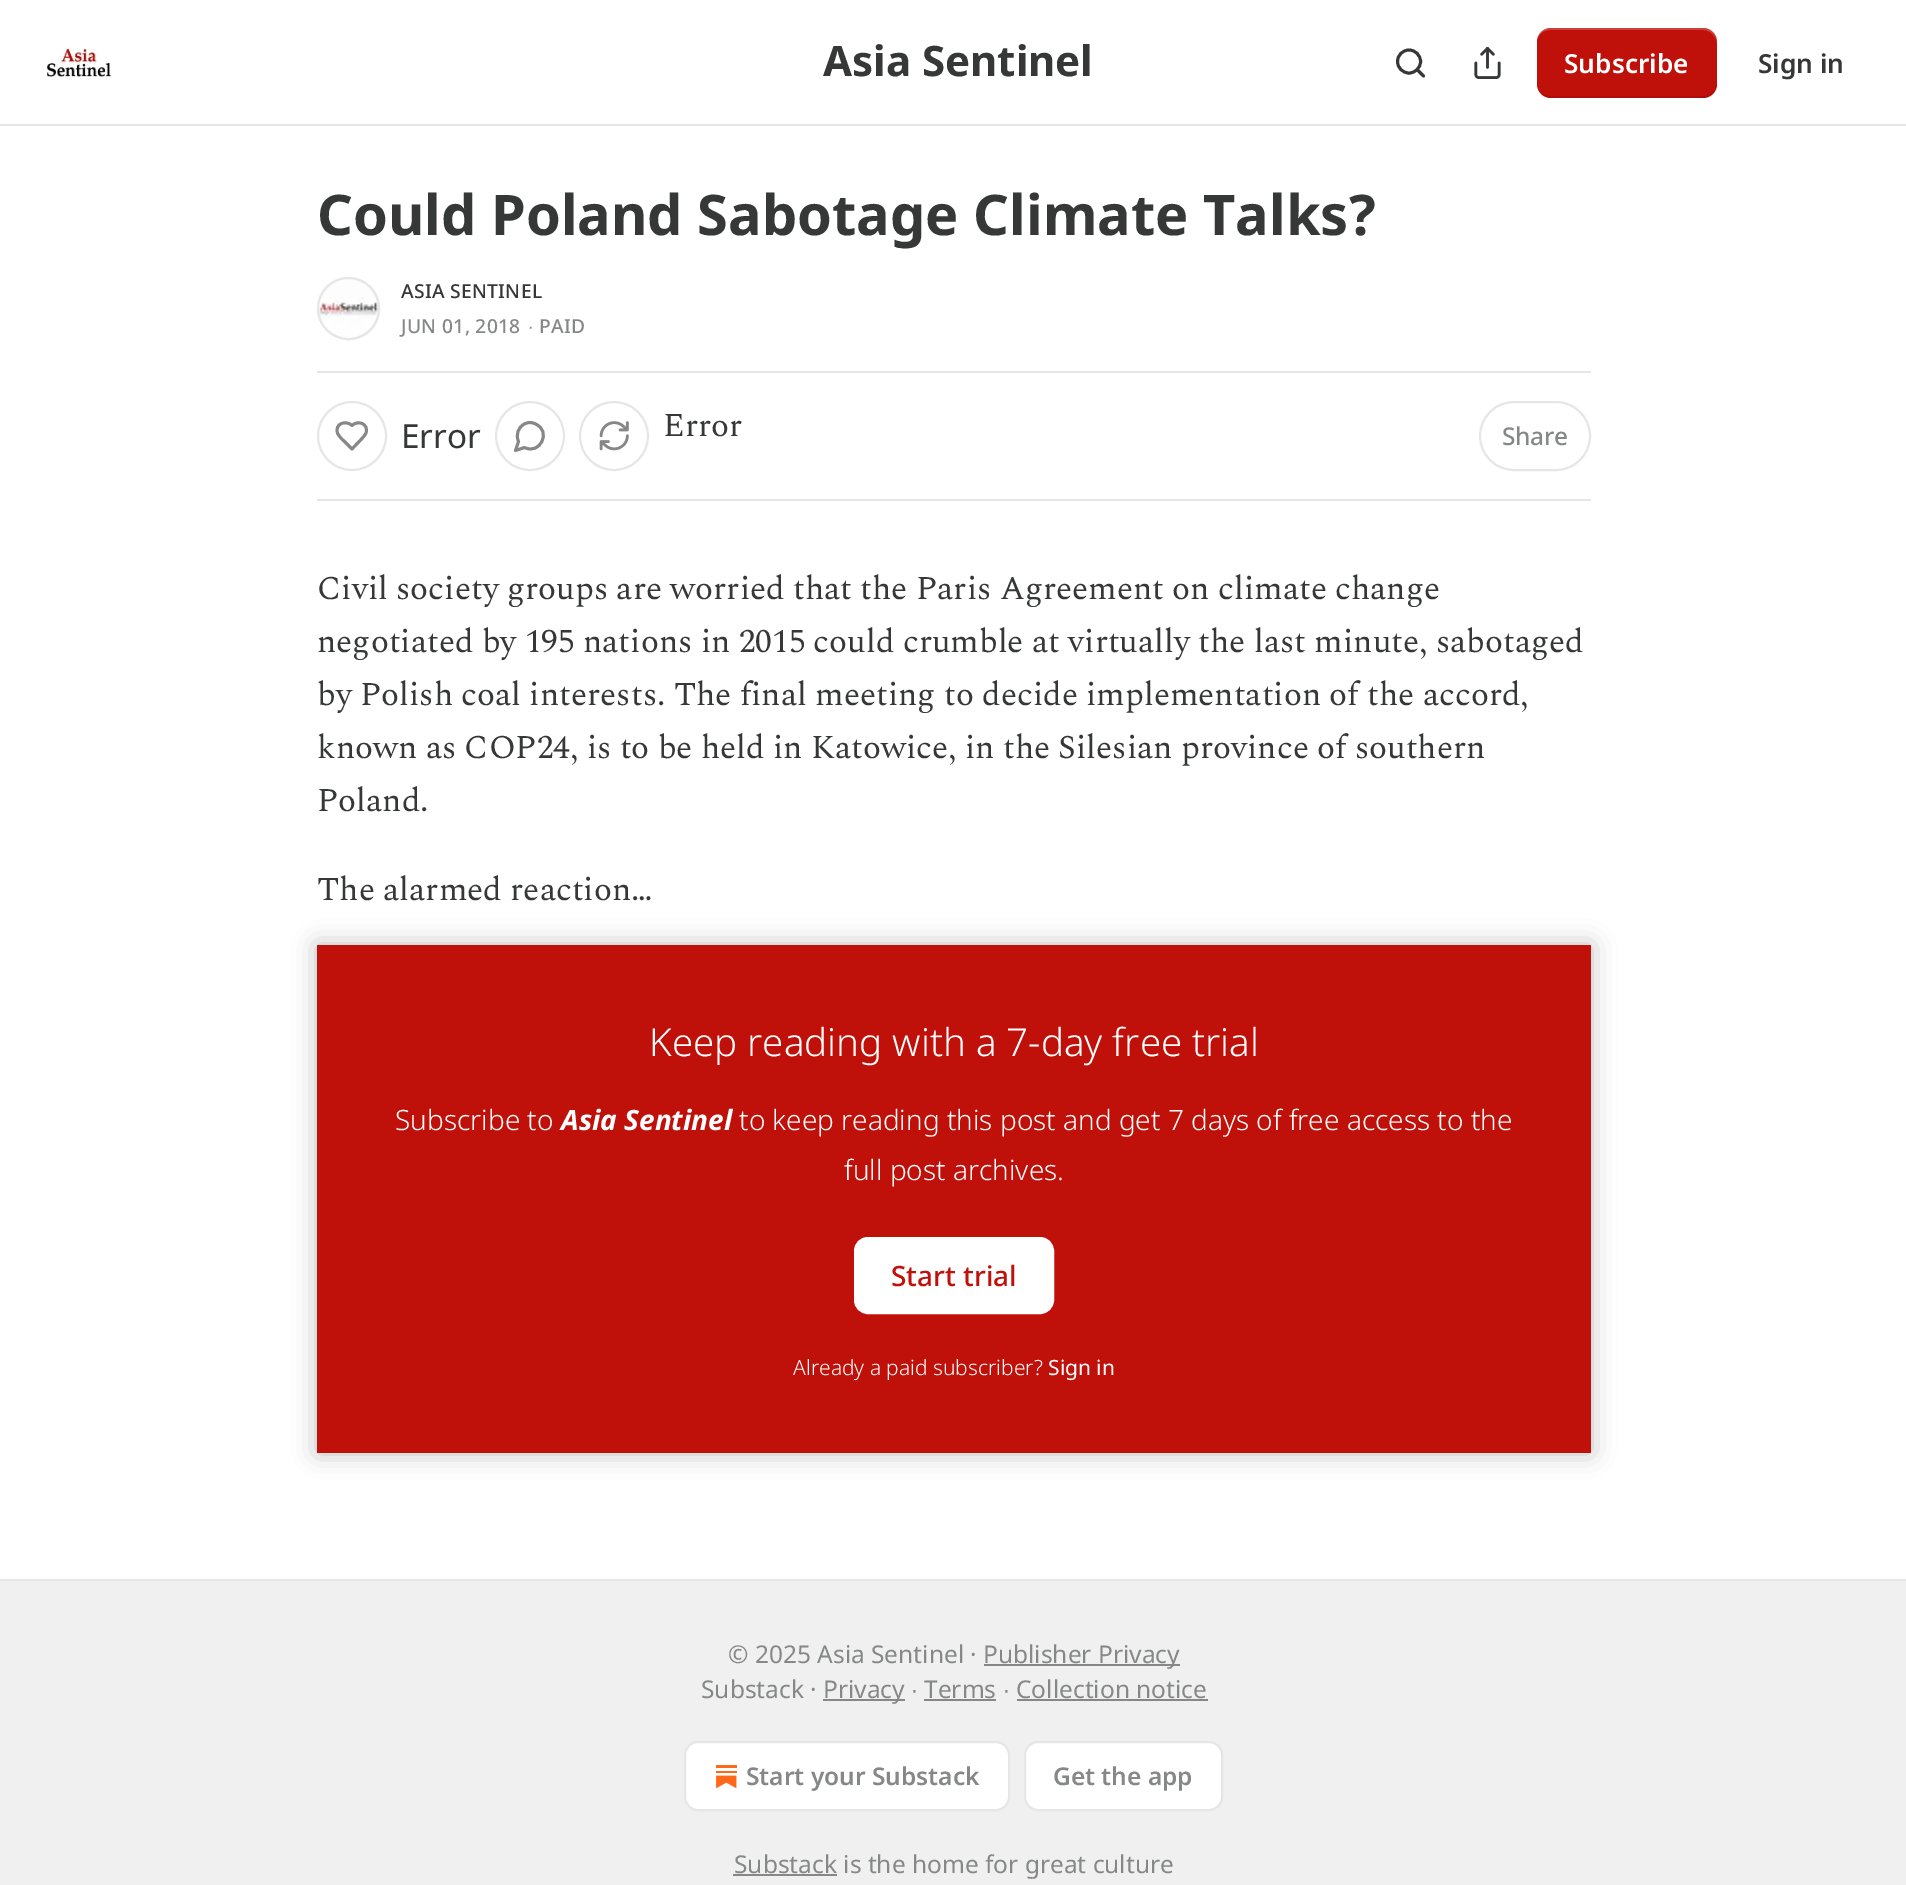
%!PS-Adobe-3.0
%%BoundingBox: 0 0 1906 1885
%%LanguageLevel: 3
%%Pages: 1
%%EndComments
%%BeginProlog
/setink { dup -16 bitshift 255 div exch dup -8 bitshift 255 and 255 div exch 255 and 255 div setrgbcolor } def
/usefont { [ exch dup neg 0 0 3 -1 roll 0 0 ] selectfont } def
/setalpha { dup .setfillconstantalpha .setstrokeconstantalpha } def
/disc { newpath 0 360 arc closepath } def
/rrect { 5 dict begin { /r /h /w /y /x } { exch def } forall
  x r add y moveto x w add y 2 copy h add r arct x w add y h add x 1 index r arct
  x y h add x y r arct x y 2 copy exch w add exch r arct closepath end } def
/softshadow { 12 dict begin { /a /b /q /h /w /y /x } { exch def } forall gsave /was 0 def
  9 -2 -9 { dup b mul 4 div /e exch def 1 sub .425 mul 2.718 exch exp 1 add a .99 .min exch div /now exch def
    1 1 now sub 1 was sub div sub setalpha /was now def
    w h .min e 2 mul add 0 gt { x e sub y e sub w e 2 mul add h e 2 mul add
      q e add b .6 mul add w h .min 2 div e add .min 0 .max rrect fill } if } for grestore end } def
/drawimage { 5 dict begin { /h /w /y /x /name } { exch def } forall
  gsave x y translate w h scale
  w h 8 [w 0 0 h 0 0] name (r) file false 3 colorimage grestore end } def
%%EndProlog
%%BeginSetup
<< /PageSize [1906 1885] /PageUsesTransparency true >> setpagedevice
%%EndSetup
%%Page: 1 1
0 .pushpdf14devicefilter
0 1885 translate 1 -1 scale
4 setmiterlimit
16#FFFFFF setink
0 0 1906 1885 rectfill
16#E6E6E6 setink
0 124 1906 2 rectfill
(img1.raw) 47 47 65 30 drawimage
/NotoSans-Bold 42 usefont
16#363737 setink
823 76 moveto (Asia Sentinel) show
2.9 setlinewidth
1409 61.5 11.5 disc stroke
1 setlinecap
1 setlinejoin
1423.5 76 moveto 1417.5 70 lineto stroke
(img2.raw) 1474 47 27 32 drawimage
16#BF110A setink
1537 28 180 70 14 rrect fill
0.1 setalpha
16#000000 setink
1538 89 moveto 1540 94 1545 98 1551 98 curveto 1703 98 lineto 1711 98 1717 92 1717 84 curveto 1717 82 lineto 1717 90 1710 96 1703 96 curveto 1550 96 lineto 1545 96 1540 93 1538 89 curveto closepath fill
0.2 setalpha
16#FFFFFF setink
1550 30 moveto 1703 30 lineto 1710 30 1717 36 1717 44 curveto 1717 42 lineto 1717 34 1711 28 1703 28 curveto 1551 28 lineto 1545 28 1540 32 1538 37 curveto 1540 33 1545 30 1550 30 curveto closepath fill
/NotoSans-SemiBold 26.25 usefont
1 setalpha
1564 73 moveto (Subscribe) show
16#363737 setink
1758 73 moveto (Sign in) show
/NotoSans-Bold 56 usefont
317 235 moveto (Could Poland Sabotage Climate Talks?) show
16#E6E6E6 setink
2 setlinewidth
0 setlinecap
0 setlinejoin
348.5 308.5 30.5 disc stroke
(img3.raw) 317 277 63 62 drawimage
348.5 308.5 30.5 disc stroke
/NotoSans-Medium 19.25 usefont
16#363737 setink
401 298 moveto 0.3 0 (ASIA SENTINEL) ashow
16#868787 setink
401 333 moveto 0.3 0 (JUN 01, 2018) ashow
/LiberationSans-Regular 19.25 usefont
528 333 moveto 0.3 0 (∙) ashow
/NotoSans-Medium 19.25 usefont
539 333 moveto 0.3 0 (PAID) ashow
16#E6E6E6 setink
317 371 1274 2 rectfill
317 499 1274 2 rectfill
352 436 34 disc stroke
16#868787 setink
2.9 setlinewidth
1 setlinecap
1 setlinejoin
362 438.5 moveto 363.5 437 365 435 366 433 curveto 369 424 358 419.5 352 425.5 curveto 345.5 419.5 334.5 424 337.5 433 curveto 338.5 436.5 342.5 439.5 345 442 curveto 352 449 lineto closepath stroke
/NotoSans-Regular 33.25 usefont
16#363737 setink
401 448 moveto (Error) show
16#E6E6E6 setink
2 setlinewidth
0 setlinecap
0 setlinejoin
530 436 34 disc stroke
16#868787 setink
2.9 setlinewidth
1 setlinecap
1 setlinejoin
524.5 447.5 moveto 540 455.5 552 431 535.5 424 curveto 532 422 528 422 524.5 424 curveto 518 427 515.5 435 518.5 441.5 curveto 515.5 450.5 lineto closepath stroke
16#E6E6E6 setink
2 setlinewidth
0 setlinecap
0 setlinejoin
614 436 34 disc stroke
(img4.raw) 599 421 30 30 drawimage
/Spectral-Regular 33.25 usefont
16#363737 setink
663 436 moveto (Error) show
16#E6E6E6 setink
1480 402 110 68 34 rrect stroke
/NotoSans-Medium 24.5 usefont
16#868787 setink
1502 445 moveto -0.25 0 (Share) ashow
/Spectral-Regular 33.25 usefont
16#363737 setink
[
    [(Civil society groups are worried that the Paris Agreement on climate change) 317 599]
    [(negotiated by 195 nations in 2015 could crumble at virtually the last minute, sabotaged) 317 652]
    [(by Polish coal interests. The final meeting to decide implementation of the accord,) 317 705]
    [(known as COP24, is to be held in Katowice, in the Silesian province of southern) 317 758]
    [(Poland.) 317 811]
    [(The alarmed reaction…) 317 900]
] { aload pop moveto show } forall
16#BF110A setink
317 945 1274 508 rectfill
16#FFFFFF setink
855 1238 198 75 13 rrect gsave fill grestore
stroke
gsave
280 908 moveto 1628 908 lineto 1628 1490 lineto 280 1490 lineto closepath 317 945 moveto 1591 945 lineto 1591 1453 lineto 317 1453 lineto closepath eoclip newpath
16#000000 setink
317 945 1274 508 0 12 0.25 softshadow
grestore
/NotoSans-Light 38.5 usefont
649 1056 moveto (Keep reading with a 7-day free trial) show
/NotoSans-Light 28 usefont
395 1130 moveto (Subscribe to) show
/NotoSans-BoldItalic 28 usefont
561 1130 moveto (Asia Sentinel) show
/NotoSans-Light 28 usefont
739 1130 moveto (to keep reading this post and get 7 days of free access to the) show
844 1180 moveto (full post archives.) show
/NotoSans-Medium 28 usefont
16#BF110A setink
891 1286 moveto (Start trial) show
/NotoSans-Light 21 usefont
16#FFFFFF setink
793 1375 moveto (Already a paid subscriber?) show
/NotoSans-Regular 21 usefont
1048 1375 moveto (Sign in) show
16#F0F0F0 setink
0 1581 1906 304 rectfill
16#E6E6E6 setink
0 1579 1906 2 rectfill
/NotoSans-Regular 24.5 usefont
16#868787 setink
728 1663 moveto (© 2025 Asia Sentinel ·) show
984 1664 196 2 rectfill
983 1663 moveto (Publisher Privacy) show
701 1698 moveto (Substack ·) show
823 1699 82 2 rectfill
823 1698 moveto (Privacy) show
/LiberationSans-Regular 24.5 usefont
911 1698 moveto (∙) show
/NotoSans-Regular 24.5 usefont
924 1698 moveto (Terms) show
924 1699 72 2 rectfill
/LiberationSans-Regular 24.5 usefont
1003 1698 moveto (∙) show
/NotoSans-Regular 24.5 usefont
1016 1698 moveto (Collection notice) show
1017 1699 191 2 rectfill
16#FFFFFF setink
685 1742 324 68 13 rrect gsave fill grestore
16#E6E6E6 setink
stroke
(img5.raw) 716 1765 21 24 drawimage
/NotoSans-SemiBold 24.5 usefont
16#868787 setink
746 1785 moveto (Start your Substack) show
16#FFFFFF setink
1025 1742 197 68 13 rrect gsave fill grestore
16#E6E6E6 setink
stroke
16#868787 setink
1053 1785 moveto (Get the app) show
733 1874 104 2 rectfill
/NotoSans-Regular 24.5 usefont
734 1873 moveto (Substack is the home for great culture) show
.poppdf14devicefilter showpage
%%EOF
